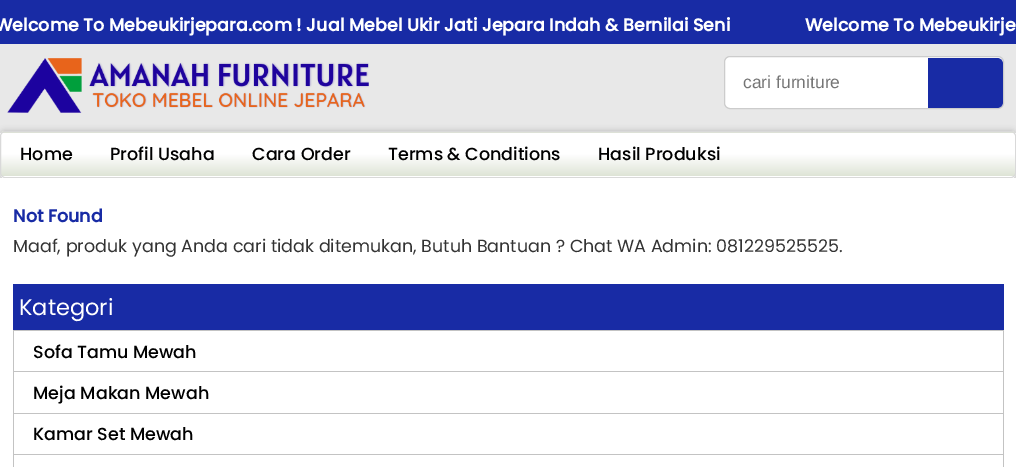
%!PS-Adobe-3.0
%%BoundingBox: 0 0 1016 467
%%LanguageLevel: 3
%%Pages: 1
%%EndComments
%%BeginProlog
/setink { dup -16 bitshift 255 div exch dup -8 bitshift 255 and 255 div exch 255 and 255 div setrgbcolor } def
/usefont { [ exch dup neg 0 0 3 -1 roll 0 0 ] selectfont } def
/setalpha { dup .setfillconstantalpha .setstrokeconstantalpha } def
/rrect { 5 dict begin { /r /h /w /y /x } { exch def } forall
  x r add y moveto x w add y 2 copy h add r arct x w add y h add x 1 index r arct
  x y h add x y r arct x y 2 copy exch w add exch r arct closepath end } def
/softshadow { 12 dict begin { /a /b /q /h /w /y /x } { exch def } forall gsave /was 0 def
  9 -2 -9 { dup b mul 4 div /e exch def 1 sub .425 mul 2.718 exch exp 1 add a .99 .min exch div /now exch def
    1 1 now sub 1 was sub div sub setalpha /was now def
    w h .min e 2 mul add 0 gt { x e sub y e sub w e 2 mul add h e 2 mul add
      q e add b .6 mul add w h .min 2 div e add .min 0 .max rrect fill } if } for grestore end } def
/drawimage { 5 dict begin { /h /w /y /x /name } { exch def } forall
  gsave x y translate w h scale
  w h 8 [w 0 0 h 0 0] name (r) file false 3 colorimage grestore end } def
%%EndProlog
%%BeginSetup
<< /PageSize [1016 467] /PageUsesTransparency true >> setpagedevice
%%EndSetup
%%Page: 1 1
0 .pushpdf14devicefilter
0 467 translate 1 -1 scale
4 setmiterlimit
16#E8E8E8 setink
0 0 1016 467 rectfill
16#182BA5 setink
0 0 1016 44 rectfill
/Poppins-Bold 17.5 usefont
16#FFFFFF setink
-5 31 moveto (Welcome To Mebeukirjepara.com ! Jual Mebel Ukir Jati Jepara Indah & Bernilai Seni) show
805 31 moveto (Welcome To Mebeukirje) show
(img1.raw) 7 58 362 55 drawimage
724.5 56.5 279 52 5.5 rrect gsave fill grestore
16#CCCCCC setink
stroke
/LiberationSans-Regular 17.5 usefont
16#757575 setink
743 88 moveto (cari furniture) show
16#182BA5 setink
928 58 moveto 997 58 lineto 1000.5 58 1003 60.5 1003 64 curveto 1003 102 lineto 1003 105.5 1000.5 108 997 108 curveto 928 108 lineto closepath fill
16#000000 setink
0 131 1016 47 5 3 0.2 softshadow
gsave
0 131 1016 47 5 rrect clip newpath
gsave 0 131 moveto 1016 131 lineto 1016 133 lineto 0 133 lineto closepath clip newpath
<< /ShadingType 2 /ColorSpace /DeviceRGB /Coords [508 89 508 133] /Extend [true true] /Function << /FunctionType 3 /Domain [0 1] /Functions [<< /FunctionType 2 /Domain [0 1] /C0 [1 1 1] /C1 [1 1 1] /N 1 >> << /FunctionType 2 /Domain [0 1] /C0 [1 1 1] /C1 [0.871 0.894 0.839] /N 1 >>] /Bounds [0.5] /Encode [0 1 0 1] >> >> shfill grestore
gsave 0 133 moveto 1016 133 lineto 1016 176 lineto 0 176 lineto closepath clip newpath
<< /ShadingType 2 /ColorSpace /DeviceRGB /Coords [508 132 508 176] /Extend [true true] /Function << /FunctionType 3 /Domain [0 1] /Functions [<< /FunctionType 2 /Domain [0 1] /C0 [1 1 1] /C1 [1 1 1] /N 1 >> << /FunctionType 2 /Domain [0 1] /C0 [1 1 1] /C1 [0.871 0.894 0.839] /N 1 >>] /Bounds [0.5] /Encode [0 1 0 1] >> >> shfill grestore
gsave 0 176 moveto 1016 176 lineto 1016 178 lineto 0 178 lineto closepath clip newpath
<< /ShadingType 2 /ColorSpace /DeviceRGB /Coords [508 176 508 220] /Extend [true true] /Function << /FunctionType 3 /Domain [0 1] /Functions [<< /FunctionType 2 /Domain [0 1] /C0 [1 1 1] /C1 [1 1 1] /N 1 >> << /FunctionType 2 /Domain [0 1] /C0 [1 1 1] /C1 [0.871 0.894 0.839] /N 1 >>] /Bounds [0.5] /Encode [0 1 0 1] >> >> shfill grestore
grestore
16#D9D9D9 setink
0.5 131.5 1015 46 4.5 rrect stroke
/Poppins-Medium 17.5 usefont
16#000000 setink
[
    [(Home) 20 160]
    [(Profil Usaha) 110 160]
    [(Cara Order) 252 160]
    [(Terms & Conditions) 388 160]
    [(Hasil Produksi) 598 160]
] { aload pop moveto show } forall
16#FFFFFF setink
0 178 1016 289 rectfill
/Poppins-Bold 17.5 usefont
16#182BA5 setink
13 222 moveto (Not Found) show
/Poppins-Regular 17.5 usefont
16#333333 setink
13 252 moveto (Maaf, produk yang Anda cari tidak ditemukan, Butuh Bantuan ? Chat WA Admin: 081229525525.) show
16#182BA5 setink
13 284 991 46 rectfill
/Poppins-Regular 22.5 usefont
16#FFFFFF setink
19 315 moveto (Kategori) show
[
    [13 330 991 1 16#C3C3C3]
    [1003 331 1 136 16#C3C3C3]
    [13 371 991 1 16#C3C3C3]
    [13 331 1 42 16#C3C3C3]
] { aload pop setink rectfill } forall
/Poppins-Medium 17.5 usefont
16#000000 setink
33 358 moveto (Sofa Tamu Mewah) show
16#C3C3C3 setink
13 413 991 1 rectfill
13 373 1 41 rectfill
16#000000 setink
33 399 moveto (Meja Makan Mewah) show
16#C3C3C3 setink
13 454 991 1 rectfill
13 414 1 53 rectfill
16#000000 setink
33 440 moveto (Kamar Set Mewah) show
.poppdf14devicefilter showpage
%%EOF
